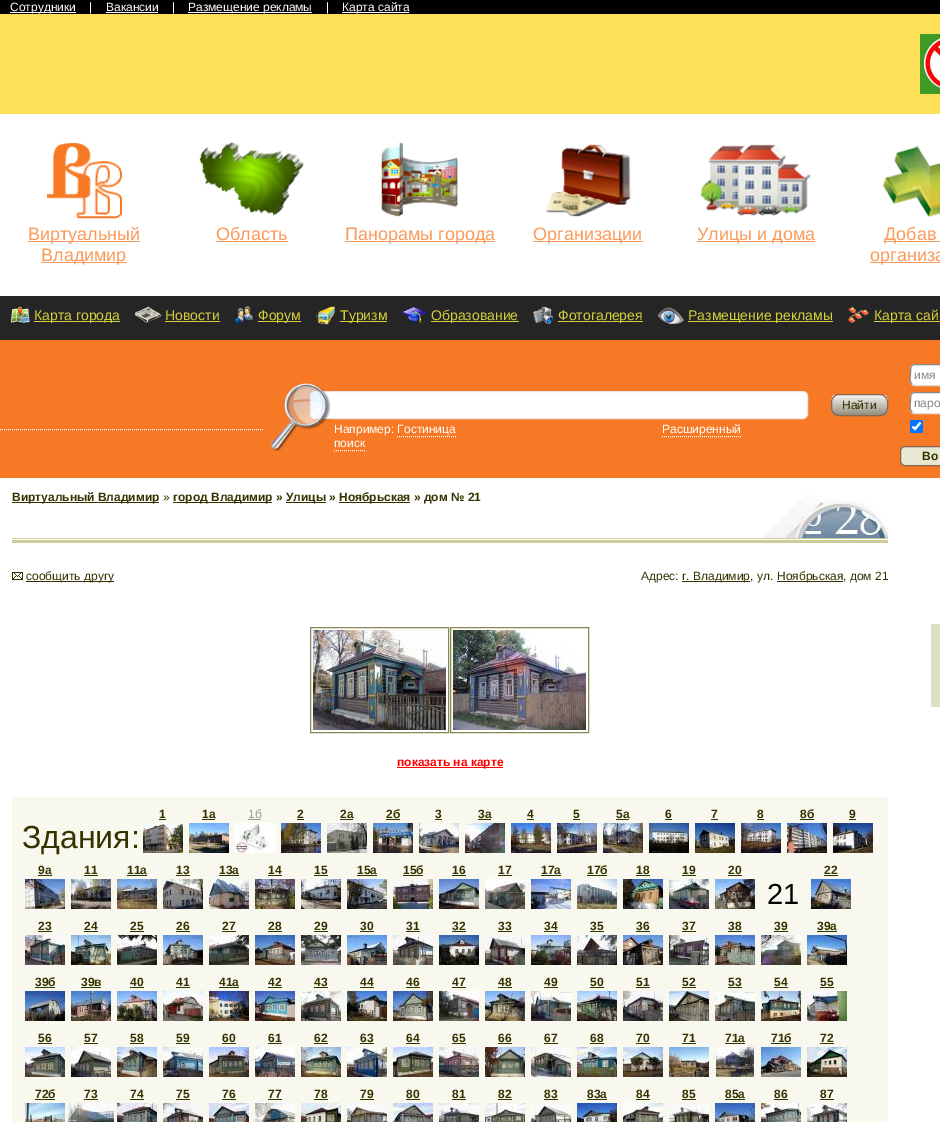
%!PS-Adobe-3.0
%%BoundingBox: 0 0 940 1122
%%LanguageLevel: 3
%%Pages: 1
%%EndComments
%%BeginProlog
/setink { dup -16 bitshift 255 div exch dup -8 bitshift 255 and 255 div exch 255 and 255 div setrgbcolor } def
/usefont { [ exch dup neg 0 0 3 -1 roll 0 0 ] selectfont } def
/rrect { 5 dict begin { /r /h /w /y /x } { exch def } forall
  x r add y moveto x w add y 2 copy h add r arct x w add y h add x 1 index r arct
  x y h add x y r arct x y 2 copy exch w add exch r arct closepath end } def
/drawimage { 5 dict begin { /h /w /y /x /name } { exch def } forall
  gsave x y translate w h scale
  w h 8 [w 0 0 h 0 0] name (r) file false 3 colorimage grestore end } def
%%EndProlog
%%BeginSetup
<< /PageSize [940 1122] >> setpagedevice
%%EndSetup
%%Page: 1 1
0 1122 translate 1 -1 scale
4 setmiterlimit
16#FFFFFF setink
0 0 940 1122 rectfill
16#000000 setink
0 0 940 14 rectfill
16#FFFFFF setink
10 12 66 1 rectfill
/LiberationSans-Regular 12 usefont
[
    [(Сотрудники) 10 11]
    [(|) 89 11]
    [(Вакансии) 106 11]
] { aload pop moveto show } forall
106 12 52 1 rectfill
172 11 moveto (|) show
188 12 124 1 rectfill
188 11 moveto (Размещение рекламы) show
326 11 moveto (|) show
342 12 67 1 rectfill
342 11 moveto (Карта сайта) show
16#FDE058 setink
0 14 940 100 rectfill
(img1.raw) 920 34 20 60 drawimage
(img2.raw) 47 143 75 76 drawimage
16#FA9B5B setink
28 241 112 1 rectfill
/LiberationSans-Regular 18 usefont
28 240 moveto (Виртуальный) show
41 262 86 1 rectfill
41 261 moveto (Владимир) show
(img3.raw) 199 142 105 74 drawimage
216 240 moveto (Область) show
216 241 72 1 rectfill
(img4.raw) 381 142 77 75 drawimage
345 241 150 1 rectfill
345 240 moveto (Панорамы города) show
(img5.raw) 545 144 86 73 drawimage
533 241 110 1 rectfill
533 240 moveto (Организации) show
(img6.raw) 700 144 111 72 drawimage
697 241 118 1 rectfill
697 240 moveto (Улицы и дома) show
(img7.raw) 882 145 58 72 drawimage
884 241 56 1 rectfill
884 240 moveto (Добав) show
870 262 70 1 rectfill
870 261 moveto (организа) show
16#252525 setink
0 296 940 44 rectfill
(img8.raw) 10 306 20 17 drawimage
16#D5CF3D setink
34 321 86 1 rectfill
/LiberationSans-Regular 14 usefont
34 320 moveto (Карта города) show
(img9.raw) 134 306 27 17 drawimage
165 320 moveto (Новости) show
165 321 55 1 rectfill
(img10.raw) 235 306 18 18 drawimage
258 321 43 1 rectfill
258 320 moveto (Форум) show
(img11.raw) 316 306 19 19 drawimage
340 321 47 1 rectfill
340 320 moveto (Туризм) show
(img12.raw) 402 306 24 17 drawimage
431 321 88 1 rectfill
431 320 moveto (Образование) show
(img13.raw) 533 306 20 18 drawimage
558 321 85 1 rectfill
558 320 moveto (Фотогалерея) show
(img14.raw) 657 307 27 18 drawimage
688 321 145 1 rectfill
688 320 moveto (Размещение рекламы) show
(img15.raw) 848 306 21 17 drawimage
874 321 66 1 rectfill
874 320 moveto (Карта сай) show
16#F77925 setink
0 340 940 138 rectfill
16#FFFFFF setink
[1 1] 0 setdash
0 429.5 moveto 264 429.5 lineto stroke
310.5 391.5 497 27 4.5 rrect gsave fill grestore
16#EAE9E7 setink
[] 0 setdash
stroke
(img16.raw) 271 383 60 69 drawimage
gsave
831 394 57 22 8 rrect clip newpath
gsave 831 395 moveto 888 395 lineto 888 415 lineto 831 415 lineto closepath clip newpath
<< /ShadingType 2 /ColorSpace /DeviceRGB /Coords [860 415 860 395] /Extend [true true] /Function << /FunctionType 2 /Domain [0 1] /C0 [0.584 0.557 0.494] /C1 [0.961 0.961 0.961] /N 1 >> >> shfill grestore
grestore
16#886551 setink
831.5 394.5 56 21 7.5 rrect stroke
/LiberationSans-Regular 12 usefont
16#333300 setink
842 409 moveto (Найти) show
16#FFFFFF setink
334 433 moveto (Например: Гостиница) show
662 433 moveto (Расширенный) show
[1 1] 0 setdash
662 436.5 moveto 741 436.5 lineto stroke
397 436.5 moveto 456 436.5 lineto stroke
334 447 moveto (поиск) show
334 450.5 moveto 365 450.5 lineto stroke
910 364 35 22 5 rrect fill
16#DEDEDE setink
[] 0 setdash
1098 366 moveto 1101 368.5 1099.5 374 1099.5 377 curveto 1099.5 380.5 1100 385.5 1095 385.5 curveto 915 385.5 lineto 912 384 lineto stroke
16#888888 setink
912 384 moveto 909 381.5 910.5 376 910.5 373 curveto 910.5 369.5 910 364.5 915 364.5 curveto 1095 364.5 lineto 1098 366 lineto stroke
914 379 moveto (имя) show
16#FFFFFF setink
910 392 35 22 5 rrect fill
16#DEDEDE setink
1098 394 moveto 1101 396.5 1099.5 402 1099.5 405 curveto 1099.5 408.5 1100 413.5 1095 413.5 curveto 915 413.5 lineto 912 412 lineto stroke
16#888888 setink
912 412 moveto 909 409.5 910.5 404 910.5 401 curveto 910.5 397.5 910 392.5 915 392.5 curveto 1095 392.5 lineto 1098 394 lineto stroke
914 407 moveto (паро) show
16#0075FF setink
910 420 13 13 2 rrect fill
16#FFFFFF setink
2.1 setlinewidth
912.5 426.5 moveto 915 429 lineto 920.5 422.5 lineto stroke
16#E7E8D2 setink
900.5 446.5 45 19 4.5 rrect gsave fill grestore
16#886551 setink
1 setlinewidth
stroke
/LiberationSans-Bold 12 usefont
16#333300 setink
922 460 moveto (Во) show
16#CCCC99 setink
12 538 876 1 rectfill
16#333300 setink
12 502 147 1 rectfill
12 501 moveto (Виртуальный Владимир) show
/LiberationSans-Regular 12 usefont
163 501 moveto (») show
173 502 99 1 rectfill
/LiberationSans-Bold 12 usefont
173 501 moveto (город Владимир ») show
286 502 40 1 rectfill
286 501 moveto (Улицы ») show
339 502 71 1 rectfill
339 501 moveto (Ноябрьская » дом № 21) show
(img17.raw) 762 495 126 43 drawimage
16#CCCC99 setink
12 540 876 3 rectfill
(img18.raw) 12 572 11 8 drawimage
16#333300 setink
26 581 88 1 rectfill
/LiberationSans-Regular 12 usefont
26 580 moveto (cообщить другу) show
641 580 moveto (Адрес: г.) show
682 581 68 1 rectfill
693 580 moveto (Владимир, ул.) show
777 581 66 1 rectfill
777 580 moveto (Ноябрьская, дом 21) show
16#888855 setink
310.5 627.5 138 105 rectstroke
450.5 627.5 138 105 rectstroke
(img19.raw) 313 630 133 100 drawimage
(img20.raw) 453 630 133 100 drawimage
16#FF0000 setink
397 767 106 1 rectfill
/LiberationSans-Bold 12 usefont
397 766 moveto (показать на карте) show
16#F8F8EE setink
12 797 876 325 rectfill
16#333300 setink
159 818 moveto (1) show
159 819 7 1 rectfill
(img21.raw) 143 823 40 30 drawimage
202 818 moveto (1а) show
202 819 13 1 rectfill
(img22.raw) 189 823 40 30 drawimage
/LiberationSans-Regular 12 usefont
16#999999 setink
248 818 moveto (1б) show
248 819 13 1 rectfill
(img23.raw) 234 823 42 30 drawimage
/LiberationSans-Bold 12 usefont
16#333300 setink
297 818 moveto (2) show
297 819 7 1 rectfill
(img24.raw) 281 823 40 30 drawimage
340 818 moveto (2а) show
340 819 13 1 rectfill
(img25.raw) 327 823 40 30 drawimage
386 818 moveto (2б) show
386 819 14 1 rectfill
(img26.raw) 373 823 40 30 drawimage
435 818 moveto (3) show
435 819 7 1 rectfill
(img27.raw) 419 823 40 30 drawimage
478 818 moveto (3а) show
478 819 13 1 rectfill
(img28.raw) 465 823 40 30 drawimage
527 818 moveto (4) show
527 819 7 1 rectfill
(img29.raw) 511 823 40 30 drawimage
573 818 moveto (5) show
573 819 7 1 rectfill
(img30.raw) 557 823 40 30 drawimage
616 818 moveto (5а) show
616 819 13 1 rectfill
(img31.raw) 603 823 40 30 drawimage
665 818 moveto (6) show
665 819 7 1 rectfill
(img32.raw) 649 823 40 30 drawimage
711 818 moveto (7) show
711 819 7 1 rectfill
(img33.raw) 695 823 40 30 drawimage
757 818 moveto (8) show
757 819 7 1 rectfill
(img34.raw) 741 823 40 30 drawimage
800 818 moveto (8б) show
800 819 14 1 rectfill
(img35.raw) 787 823 40 30 drawimage
849 818 moveto (9) show
849 819 7 1 rectfill
(img36.raw) 833 823 40 30 drawimage
/LiberationSans-Regular 32 usefont
22 848 moveto (Здания:) show
/LiberationSans-Bold 12 usefont
38 874 moveto (9а) show
38 875 14 1 rectfill
(img37.raw) 25 879 40 30 drawimage
84 874 moveto (11) show
84 875 14 1 rectfill
(img38.raw) 71 879 40 30 drawimage
127 874 moveto (11а) show
127 875 20 1 rectfill
(img39.raw) 117 879 40 30 drawimage
176 874 moveto (13) show
176 875 14 1 rectfill
(img40.raw) 163 879 40 30 drawimage
219 874 moveto (13а) show
219 875 20 1 rectfill
(img41.raw) 209 879 40 30 drawimage
268 874 moveto (14) show
268 875 14 1 rectfill
(img42.raw) 255 879 40 30 drawimage
314 874 moveto (15) show
314 875 14 1 rectfill
(img43.raw) 301 879 40 30 drawimage
357 874 moveto (15а) show
357 875 20 1 rectfill
(img44.raw) 347 879 40 30 drawimage
403 874 moveto (15б) show
403 875 20 1 rectfill
(img45.raw) 393 879 40 30 drawimage
452 874 moveto (16) show
452 875 14 1 rectfill
(img46.raw) 439 879 40 30 drawimage
498 874 moveto (17) show
498 875 14 1 rectfill
(img47.raw) 485 879 40 30 drawimage
541 874 moveto (17а) show
541 875 20 1 rectfill
(img48.raw) 531 879 40 30 drawimage
587 874 moveto (17б) show
587 875 20 1 rectfill
(img49.raw) 577 879 40 30 drawimage
636 874 moveto (18) show
636 875 14 1 rectfill
(img50.raw) 623 879 40 30 drawimage
682 874 moveto (19) show
682 875 14 1 rectfill
(img51.raw) 669 879 40 30 drawimage
728 874 moveto (20) show
728 875 14 1 rectfill
(img52.raw) 715 879 40 30 drawimage
824 874 moveto (22) show
824 875 14 1 rectfill
(img53.raw) 811 879 40 30 drawimage
/LiberationSans-Regular 29 usefont
16#000000 setink
767 904 moveto (21) show
/LiberationSans-Bold 12 usefont
16#333300 setink
38 930 moveto (23) show
38 931 14 1 rectfill
(img54.raw) 25 935 40 30 drawimage
84 930 moveto (24) show
84 931 14 1 rectfill
(img55.raw) 71 935 40 30 drawimage
130 930 moveto (25) show
130 931 14 1 rectfill
(img56.raw) 117 935 40 30 drawimage
176 930 moveto (26) show
176 931 14 1 rectfill
(img57.raw) 163 935 40 30 drawimage
222 930 moveto (27) show
222 931 14 1 rectfill
(img58.raw) 209 935 40 30 drawimage
268 930 moveto (28) show
268 931 14 1 rectfill
(img59.raw) 255 935 40 30 drawimage
314 930 moveto (29) show
314 931 14 1 rectfill
(img60.raw) 301 935 40 30 drawimage
360 930 moveto (30) show
360 931 14 1 rectfill
(img61.raw) 347 935 40 30 drawimage
406 930 moveto (31) show
406 931 14 1 rectfill
(img62.raw) 393 935 40 30 drawimage
452 930 moveto (32) show
452 931 14 1 rectfill
(img63.raw) 439 935 40 30 drawimage
498 930 moveto (33) show
498 931 14 1 rectfill
(img64.raw) 485 935 40 30 drawimage
544 930 moveto (34) show
544 931 14 1 rectfill
(img65.raw) 531 935 40 30 drawimage
590 930 moveto (35) show
590 931 14 1 rectfill
(img66.raw) 577 935 40 30 drawimage
636 930 moveto (36) show
636 931 14 1 rectfill
(img67.raw) 623 935 40 30 drawimage
682 930 moveto (37) show
682 931 14 1 rectfill
(img68.raw) 669 935 40 30 drawimage
728 930 moveto (38) show
728 931 14 1 rectfill
(img69.raw) 715 935 40 30 drawimage
774 930 moveto (39) show
774 931 14 1 rectfill
(img70.raw) 761 935 40 30 drawimage
817 930 moveto (39а) show
817 931 20 1 rectfill
(img71.raw) 807 935 40 30 drawimage
35 986 moveto (39б) show
35 987 20 1 rectfill
(img72.raw) 25 991 40 30 drawimage
81 986 moveto (39в) show
81 987 20 1 rectfill
(img73.raw) 71 991 40 30 drawimage
130 986 moveto (40) show
130 987 14 1 rectfill
(img74.raw) 117 991 40 30 drawimage
176 986 moveto (41) show
176 987 14 1 rectfill
(img75.raw) 163 991 40 30 drawimage
219 986 moveto (41а) show
219 987 20 1 rectfill
(img76.raw) 209 991 40 30 drawimage
268 986 moveto (42) show
268 987 14 1 rectfill
(img77.raw) 255 991 40 30 drawimage
314 986 moveto (43) show
314 987 14 1 rectfill
(img78.raw) 301 991 40 30 drawimage
360 986 moveto (44) show
360 987 14 1 rectfill
(img79.raw) 347 991 40 30 drawimage
406 986 moveto (46) show
406 987 14 1 rectfill
(img80.raw) 393 991 40 30 drawimage
452 986 moveto (47) show
452 987 14 1 rectfill
(img81.raw) 439 991 40 30 drawimage
498 986 moveto (48) show
498 987 14 1 rectfill
(img82.raw) 485 991 40 30 drawimage
544 986 moveto (49) show
544 987 14 1 rectfill
(img83.raw) 531 991 40 30 drawimage
590 986 moveto (50) show
590 987 14 1 rectfill
(img84.raw) 577 991 40 30 drawimage
636 986 moveto (51) show
636 987 14 1 rectfill
(img85.raw) 623 991 40 30 drawimage
682 986 moveto (52) show
682 987 14 1 rectfill
(img86.raw) 669 991 40 30 drawimage
728 986 moveto (53) show
728 987 14 1 rectfill
(img87.raw) 715 991 40 30 drawimage
774 986 moveto (54) show
774 987 14 1 rectfill
(img88.raw) 761 991 40 30 drawimage
820 986 moveto (55) show
820 987 14 1 rectfill
(img89.raw) 807 991 40 30 drawimage
38 1042 moveto (56) show
38 1043 14 1 rectfill
(img90.raw) 25 1047 40 30 drawimage
84 1042 moveto (57) show
84 1043 14 1 rectfill
(img91.raw) 71 1047 40 30 drawimage
130 1042 moveto (58) show
130 1043 14 1 rectfill
(img92.raw) 117 1047 40 30 drawimage
176 1042 moveto (59) show
176 1043 14 1 rectfill
(img93.raw) 163 1047 40 30 drawimage
222 1042 moveto (60) show
222 1043 14 1 rectfill
(img94.raw) 209 1047 40 30 drawimage
268 1042 moveto (61) show
268 1043 14 1 rectfill
(img95.raw) 255 1047 40 30 drawimage
314 1042 moveto (62) show
314 1043 14 1 rectfill
(img96.raw) 301 1047 40 30 drawimage
360 1042 moveto (63) show
360 1043 14 1 rectfill
(img97.raw) 347 1047 40 30 drawimage
406 1042 moveto (64) show
406 1043 14 1 rectfill
(img98.raw) 393 1047 40 30 drawimage
452 1042 moveto (65) show
452 1043 14 1 rectfill
(img99.raw) 439 1047 40 30 drawimage
498 1042 moveto (66) show
498 1043 14 1 rectfill
(img100.raw) 485 1047 40 30 drawimage
544 1042 moveto (67) show
544 1043 14 1 rectfill
(img101.raw) 531 1047 40 30 drawimage
590 1042 moveto (68) show
590 1043 14 1 rectfill
(img102.raw) 577 1047 40 30 drawimage
636 1042 moveto (70) show
636 1043 14 1 rectfill
(img103.raw) 623 1047 40 30 drawimage
682 1042 moveto (71) show
682 1043 14 1 rectfill
(img104.raw) 669 1047 40 30 drawimage
725 1042 moveto (71а) show
725 1043 20 1 rectfill
(img105.raw) 716 1047 38 30 drawimage
771 1042 moveto (71б) show
771 1043 20 1 rectfill
(img106.raw) 761 1047 40 30 drawimage
820 1042 moveto (72) show
820 1043 14 1 rectfill
(img107.raw) 807 1047 40 30 drawimage
35 1098 moveto (72б) show
35 1099 20 1 rectfill
(img108.raw) 25 1103 40 19 drawimage
84 1098 moveto (73) show
84 1099 14 1 rectfill
(img109.raw) 68 1103 46 19 drawimage
130 1098 moveto (74) show
130 1099 14 1 rectfill
(img110.raw) 117 1103 40 19 drawimage
176 1098 moveto (75) show
176 1099 14 1 rectfill
(img111.raw) 163 1103 40 19 drawimage
222 1098 moveto (76) show
222 1099 14 1 rectfill
(img112.raw) 209 1103 40 19 drawimage
268 1098 moveto (77) show
268 1099 14 1 rectfill
(img113.raw) 255 1103 40 19 drawimage
314 1098 moveto (78) show
314 1099 14 1 rectfill
(img114.raw) 301 1103 40 19 drawimage
360 1098 moveto (79) show
360 1099 14 1 rectfill
(img115.raw) 347 1103 40 19 drawimage
406 1098 moveto (80) show
406 1099 14 1 rectfill
(img116.raw) 393 1103 40 19 drawimage
452 1098 moveto (81) show
452 1099 14 1 rectfill
(img117.raw) 439 1103 40 19 drawimage
498 1098 moveto (82) show
498 1099 14 1 rectfill
(img118.raw) 485 1103 40 19 drawimage
544 1098 moveto (83) show
544 1099 14 1 rectfill
(img119.raw) 531 1103 40 19 drawimage
587 1098 moveto (83а) show
587 1099 20 1 rectfill
(img120.raw) 577 1103 40 19 drawimage
636 1098 moveto (84) show
636 1099 14 1 rectfill
(img121.raw) 623 1103 40 19 drawimage
682 1098 moveto (85) show
682 1099 14 1 rectfill
(img122.raw) 669 1103 40 19 drawimage
725 1098 moveto (85а) show
725 1099 20 1 rectfill
(img123.raw) 715 1103 40 19 drawimage
774 1098 moveto (86) show
774 1099 14 1 rectfill
(img124.raw) 761 1103 40 19 drawimage
820 1098 moveto (87) show
820 1099 14 1 rectfill
(img125.raw) 807 1103 40 19 drawimage
16#DDDEC2 setink
931 624 9 83 rectfill
showpage
%%EOF
